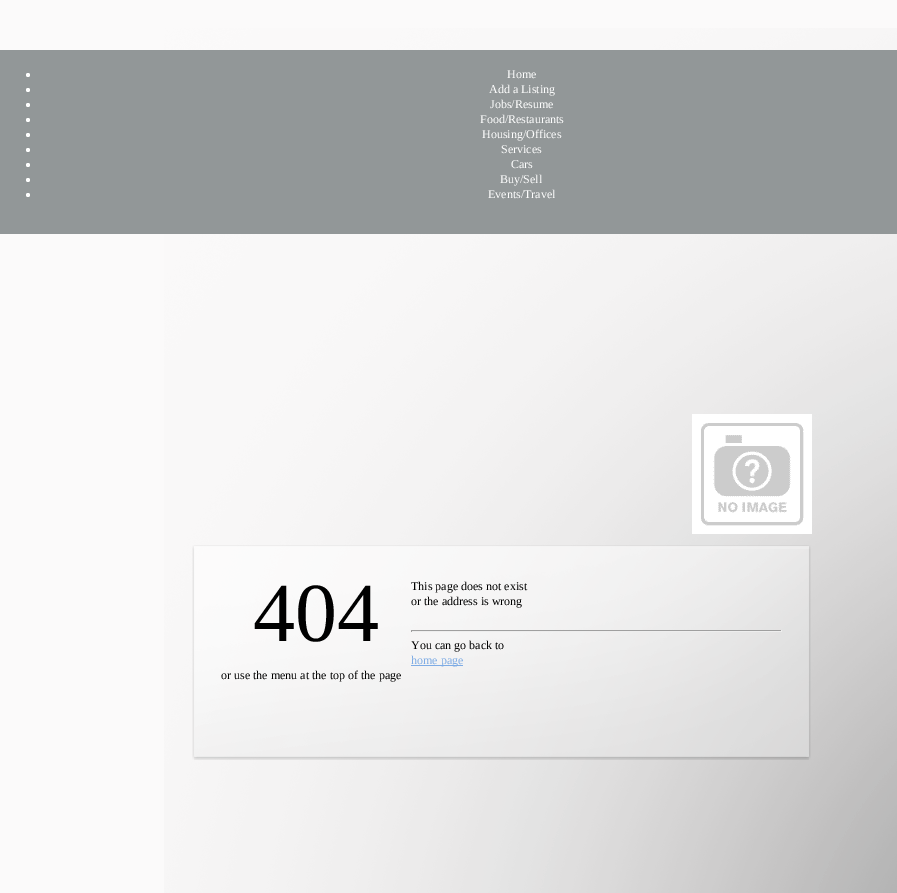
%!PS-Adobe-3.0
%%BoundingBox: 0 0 897 893
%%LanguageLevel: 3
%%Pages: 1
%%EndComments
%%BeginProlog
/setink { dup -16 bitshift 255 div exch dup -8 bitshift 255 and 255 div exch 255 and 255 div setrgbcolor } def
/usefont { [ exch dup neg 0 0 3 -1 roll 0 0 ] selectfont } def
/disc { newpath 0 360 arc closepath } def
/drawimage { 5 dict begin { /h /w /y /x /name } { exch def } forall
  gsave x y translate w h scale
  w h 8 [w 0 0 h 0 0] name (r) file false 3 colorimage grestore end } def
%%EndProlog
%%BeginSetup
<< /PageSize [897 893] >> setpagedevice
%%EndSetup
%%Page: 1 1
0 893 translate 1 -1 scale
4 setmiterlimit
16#FBFAFA setink
0 0 897 893 rectfill
(img1.raw) 164 28 733 865 drawimage
16#929798 setink
0 50 897 184 rectfill
16#FEFEFE setink
28 75 2 disc fill
/LiberationSerif-Regular 12 usefont
507 78 moveto (Home) show
28 90 2 disc fill
489 93 moveto (Add a Listing) show
28 105 2 disc fill
490 108 moveto (Jobs/Resume) show
28 120 2 disc fill
480 123 moveto (Food/Restaurants) show
28 135 2 disc fill
482 138 moveto (Housing/Offices) show
28 150 2 disc fill
501 153 moveto (Services) show
28 165 2 disc fill
511 168 moveto (Cars) show
28 180 2 disc fill
500 183 moveto (Buy/Sell) show
28 195 2 disc fill
488 198 moveto (Events/Travel) show
(img2.raw) 692 414 120 120 drawimage
(img3.raw) 192 545 619 215 drawimage
/LiberationSerif-Regular 84 usefont
16#000000 setink
253 641 moveto (404) show
/LiberationSerif-Regular 12 usefont
411 590 moveto (This page does not exist) show
411 605 moveto (or the address is wrong) show
[
    [411 630 371 1 16#9F9F9F]
    [781 630 1 2 16#EEEEEE]
    [411 631 371 1 16#EEEEEE]
    [411 630 1 2 16#9F9F9F]
] { aload pop setink rectfill } forall
16#000000 setink
411 649 moveto (You can go back to) show
16#7EACE5 setink
411 665 52 1 rectfill
411 664 moveto (home page) show
16#000000 setink
221 679 moveto (or use the menu at the top of the page) show
showpage
%%EOF
